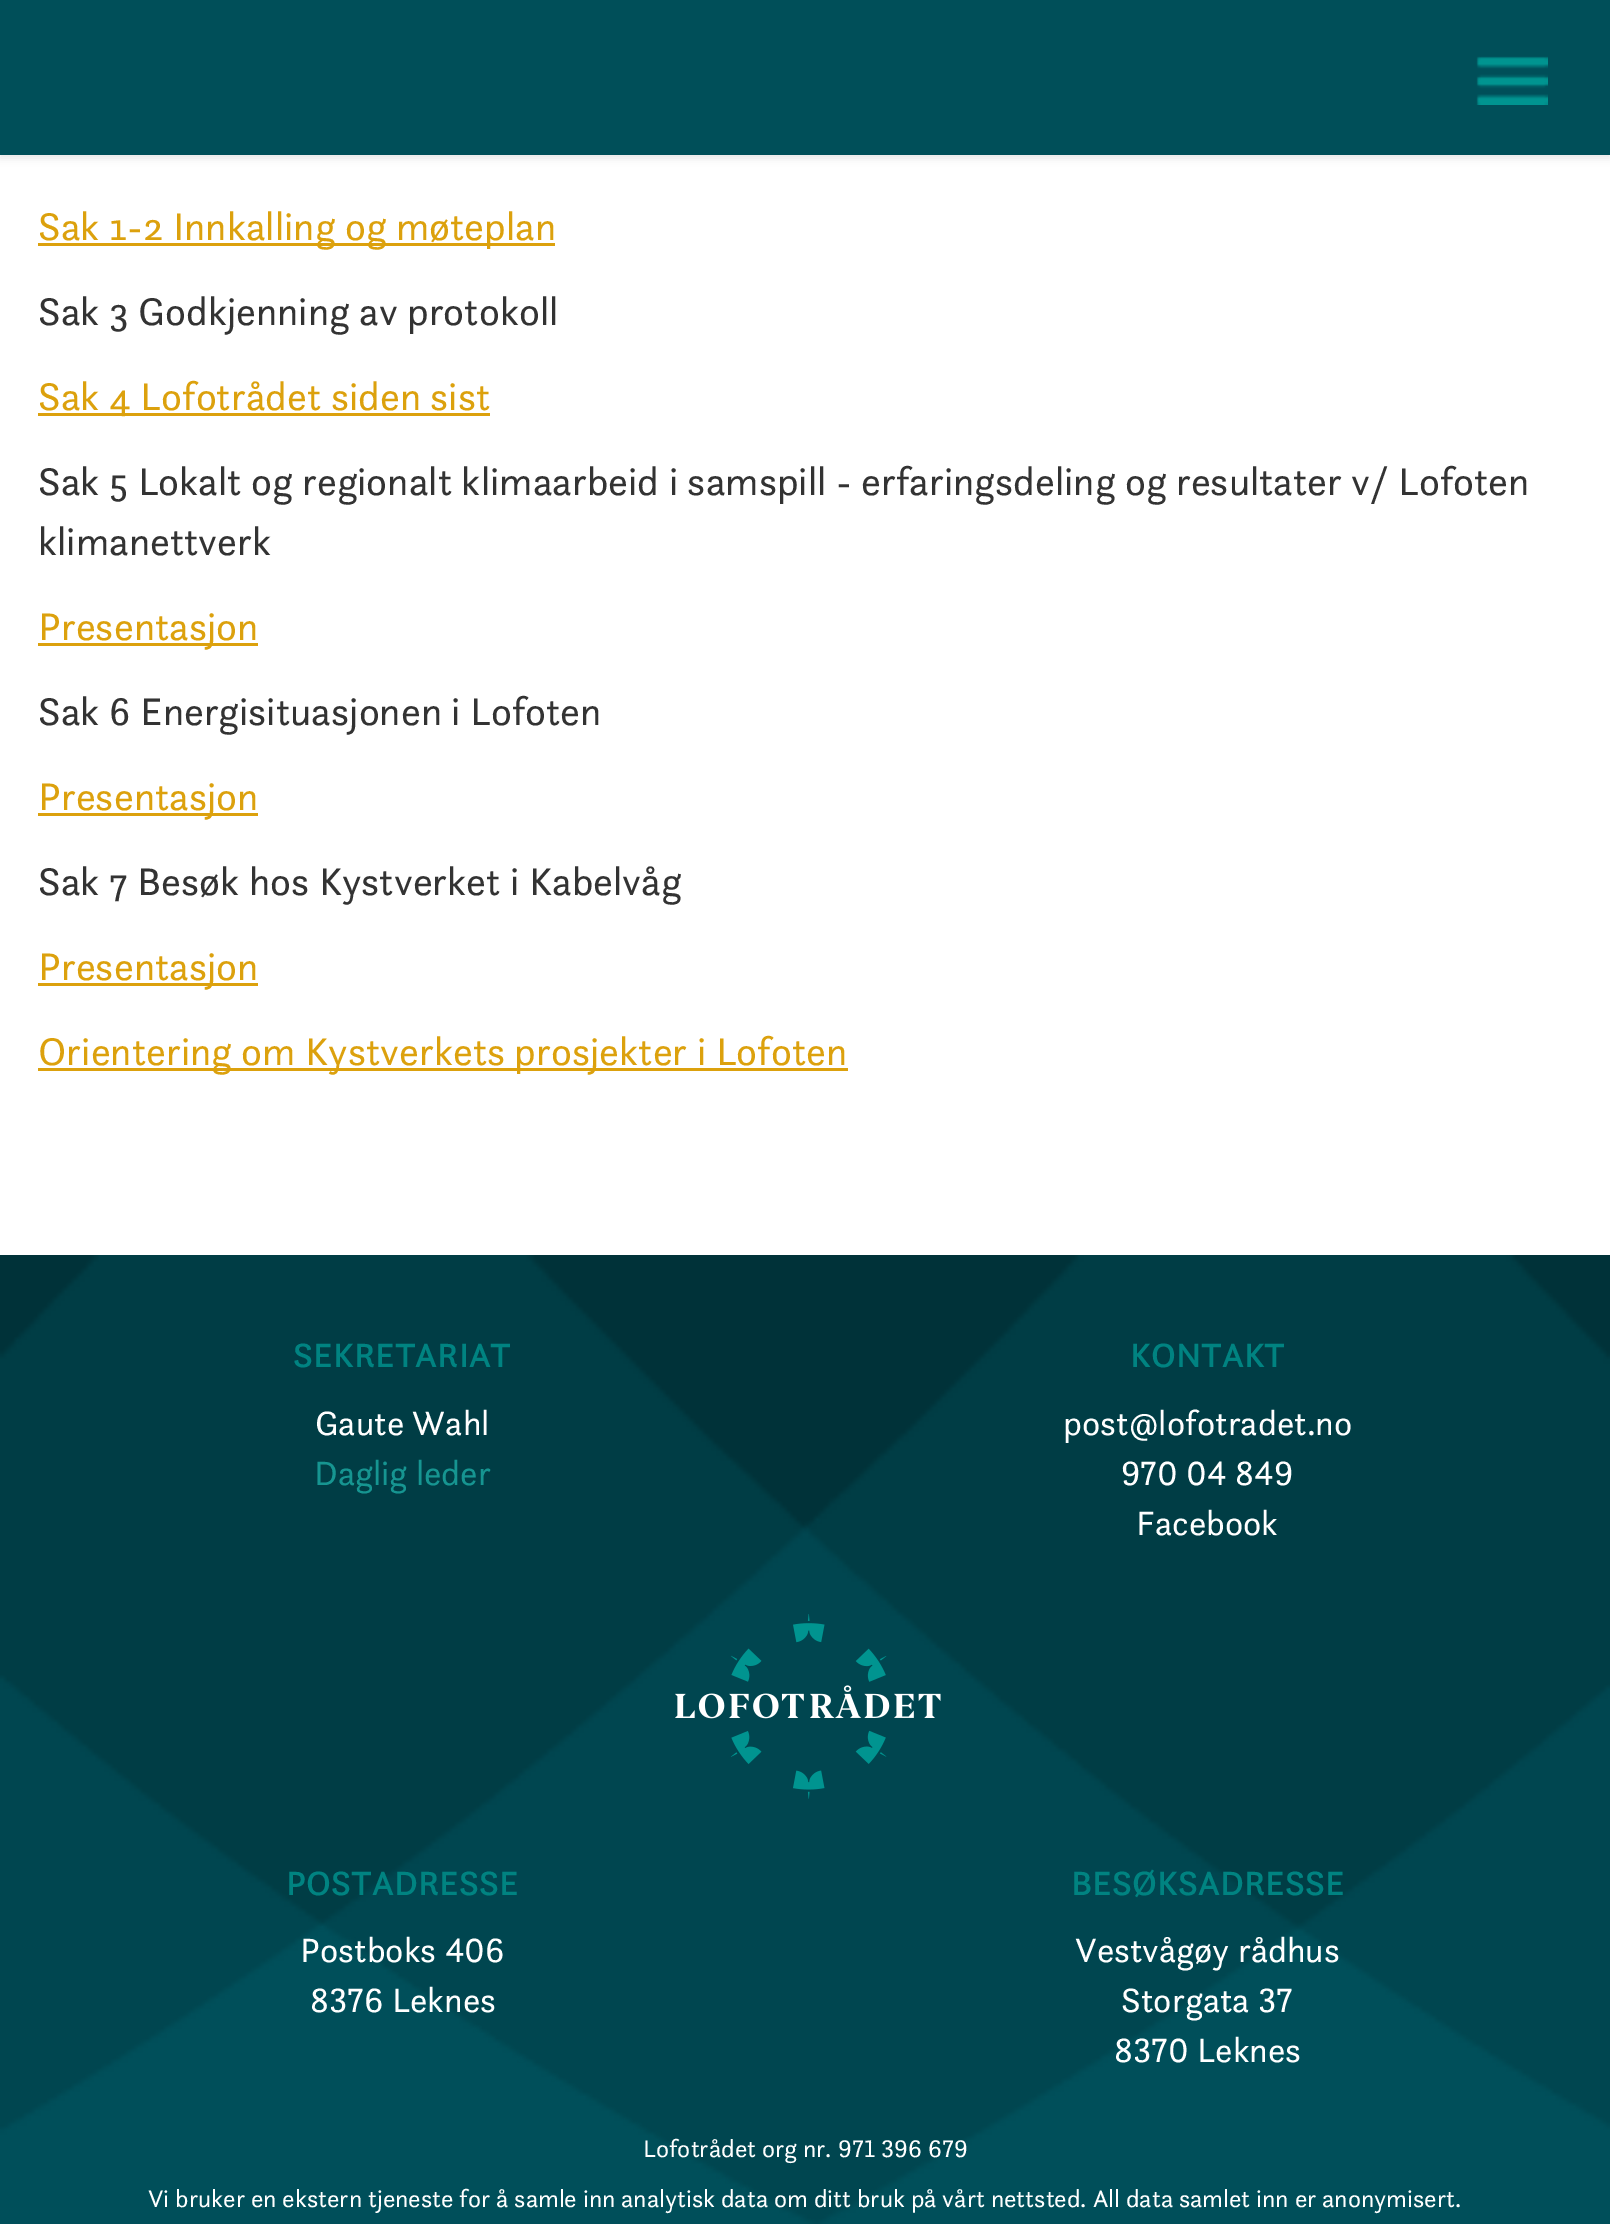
%!PS-Adobe-3.0
%%BoundingBox: 0 0 1610 2224
%%LanguageLevel: 3
%%Pages: 1
%%EndComments
%%BeginProlog
/setink { dup -16 bitshift 255 div exch dup -8 bitshift 255 and 255 div exch 255 and 255 div setrgbcolor } def
/usefont { [ exch dup neg 0 0 3 -1 roll 0 0 ] selectfont } def
/setalpha { dup .setfillconstantalpha .setstrokeconstantalpha } def
/rrect { 5 dict begin { /r /h /w /y /x } { exch def } forall
  x r add y moveto x w add y 2 copy h add r arct x w add y h add x 1 index r arct
  x y h add x y r arct x y 2 copy exch w add exch r arct closepath end } def
/softshadow { 12 dict begin { /a /b /q /h /w /y /x } { exch def } forall gsave /was 0 def
  9 -2 -9 { dup b mul 4 div /e exch def 1 sub .425 mul 2.718 exch exp 1 add a .99 .min exch div /now exch def
    1 1 now sub 1 was sub div sub setalpha /was now def
    w h .min e 2 mul add 0 gt { x e sub y e sub w e 2 mul add h e 2 mul add
      q e add b .6 mul add w h .min 2 div e add .min 0 .max rrect fill } if } for grestore end } def
/drawimage { 5 dict begin { /h /w /y /x /name } { exch def } forall
  gsave x y translate w h scale
  w h 8 [w 0 0 h 0 0] name (r) file false 3 colorimage grestore end } def
%%EndProlog
%%BeginSetup
<< /PageSize [1610 2224] /PageUsesTransparency true >> setpagedevice
%%EndSetup
%%Page: 1 1
0 .pushpdf14devicefilter
0 2224 translate 1 -1 scale
4 setmiterlimit
16#FFFFFF setink
0 0 1610 2224 rectfill
16#000000 setink
0 3 1610 155 0 4 0.1 softshadow
16#004F59 setink
0 0 1610 155 rectfill
(img1.raw) 1476 56 72 49 drawimage
16#DCA10D setink
38 243 517 3 rectfill
/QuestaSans-Regular 40 usefont
38 240 moveto (Sak 1-2 Innkalling og møteplan) show
16#333333 setink
38 325 moveto (Sak 3 Godkjenning av protokoll) show
16#DCA10D setink
38 413 452 3 rectfill
38 410 moveto (Sak 4 Lofotrådet siden sist) show
16#333333 setink
38 495 moveto (Sak 5 Lokalt og regionalt klimaarbeid i samspill - erfaringsdeling og resultater v/ Lofoten) show
38 555 moveto (klimanettverk) show
16#DCA10D setink
38 643 220 3 rectfill
38 640 moveto (Presentasjon) show
16#333333 setink
38 725 moveto (Sak 6 Energisituasjonen i Lofoten) show
16#DCA10D setink
38 813 220 3 rectfill
38 810 moveto (Presentasjon) show
16#333333 setink
38 895 moveto (Sak 7 Besøk hos Kystverket i Kabelvåg) show
16#DCA10D setink
38 983 220 3 rectfill
38 980 moveto (Presentasjon) show
38 1068 810 3 rectfill
38 1065 moveto (Orientering om Kystverkets prosjekter i Lofoten) show
(img2.raw) 0 1255 1610 969 drawimage
/QuestaSans-Medium 35 usefont
16#008381 setink
293 1367 moveto (SEKRETARIAT) show
/QuestaSans-Regular 35 usefont
16#FFFFFF setink
315 1435 moveto (Gaute Wahl) show
16#169591 setink
314 1485 moveto (Daglig leder) show
/QuestaSans-Medium 35 usefont
16#008381 setink
1130 1367 moveto (KONTAKT) show
/QuestaSans-Regular 35 usefont
16#FFFFFF setink
1063 1435 moveto (post@lofotradet.no) show
/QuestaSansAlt-Regular 35 usefont
1121 1485 moveto (970 04 849) show
/QuestaSans-Regular 35 usefont
1136 1535 moveto (Facebook) show
(img3.raw) 675 1614 266 185 drawimage
/QuestaSans-Medium 35 usefont
16#008381 setink
286 1895 moveto (POSTADRESSE) show
/QuestaSansAlt-Regular 35 usefont
16#FFFFFF setink
300 1962 moveto (Postboks 406) show
310 2012 moveto (8376 Leknes) show
/QuestaSans-Medium 35 usefont
16#008381 setink
1071 1895 moveto (BESØKSADRESSE) show
/QuestaSans-Regular 35 usefont
16#FFFFFF setink
1075 1962 moveto (Vestvågøy rådhus) show
/QuestaSansAlt-Regular 35 usefont
1121 2012 moveto (Storgata 37) show
1114 2062 moveto (8370 Leknes) show
/QuestaSansAlt-Regular 25 usefont
643 2157 moveto (Lofotrådet org nr. 971 396 679) show
/QuestaSans-Regular 25 usefont
148 2207 moveto (Vi bruker en ekstern tjeneste for å samle inn analytisk data om ditt bruk på vårt nettsted. All data samlet inn er anonymisert.) show
.poppdf14devicefilter showpage
%%EOF
